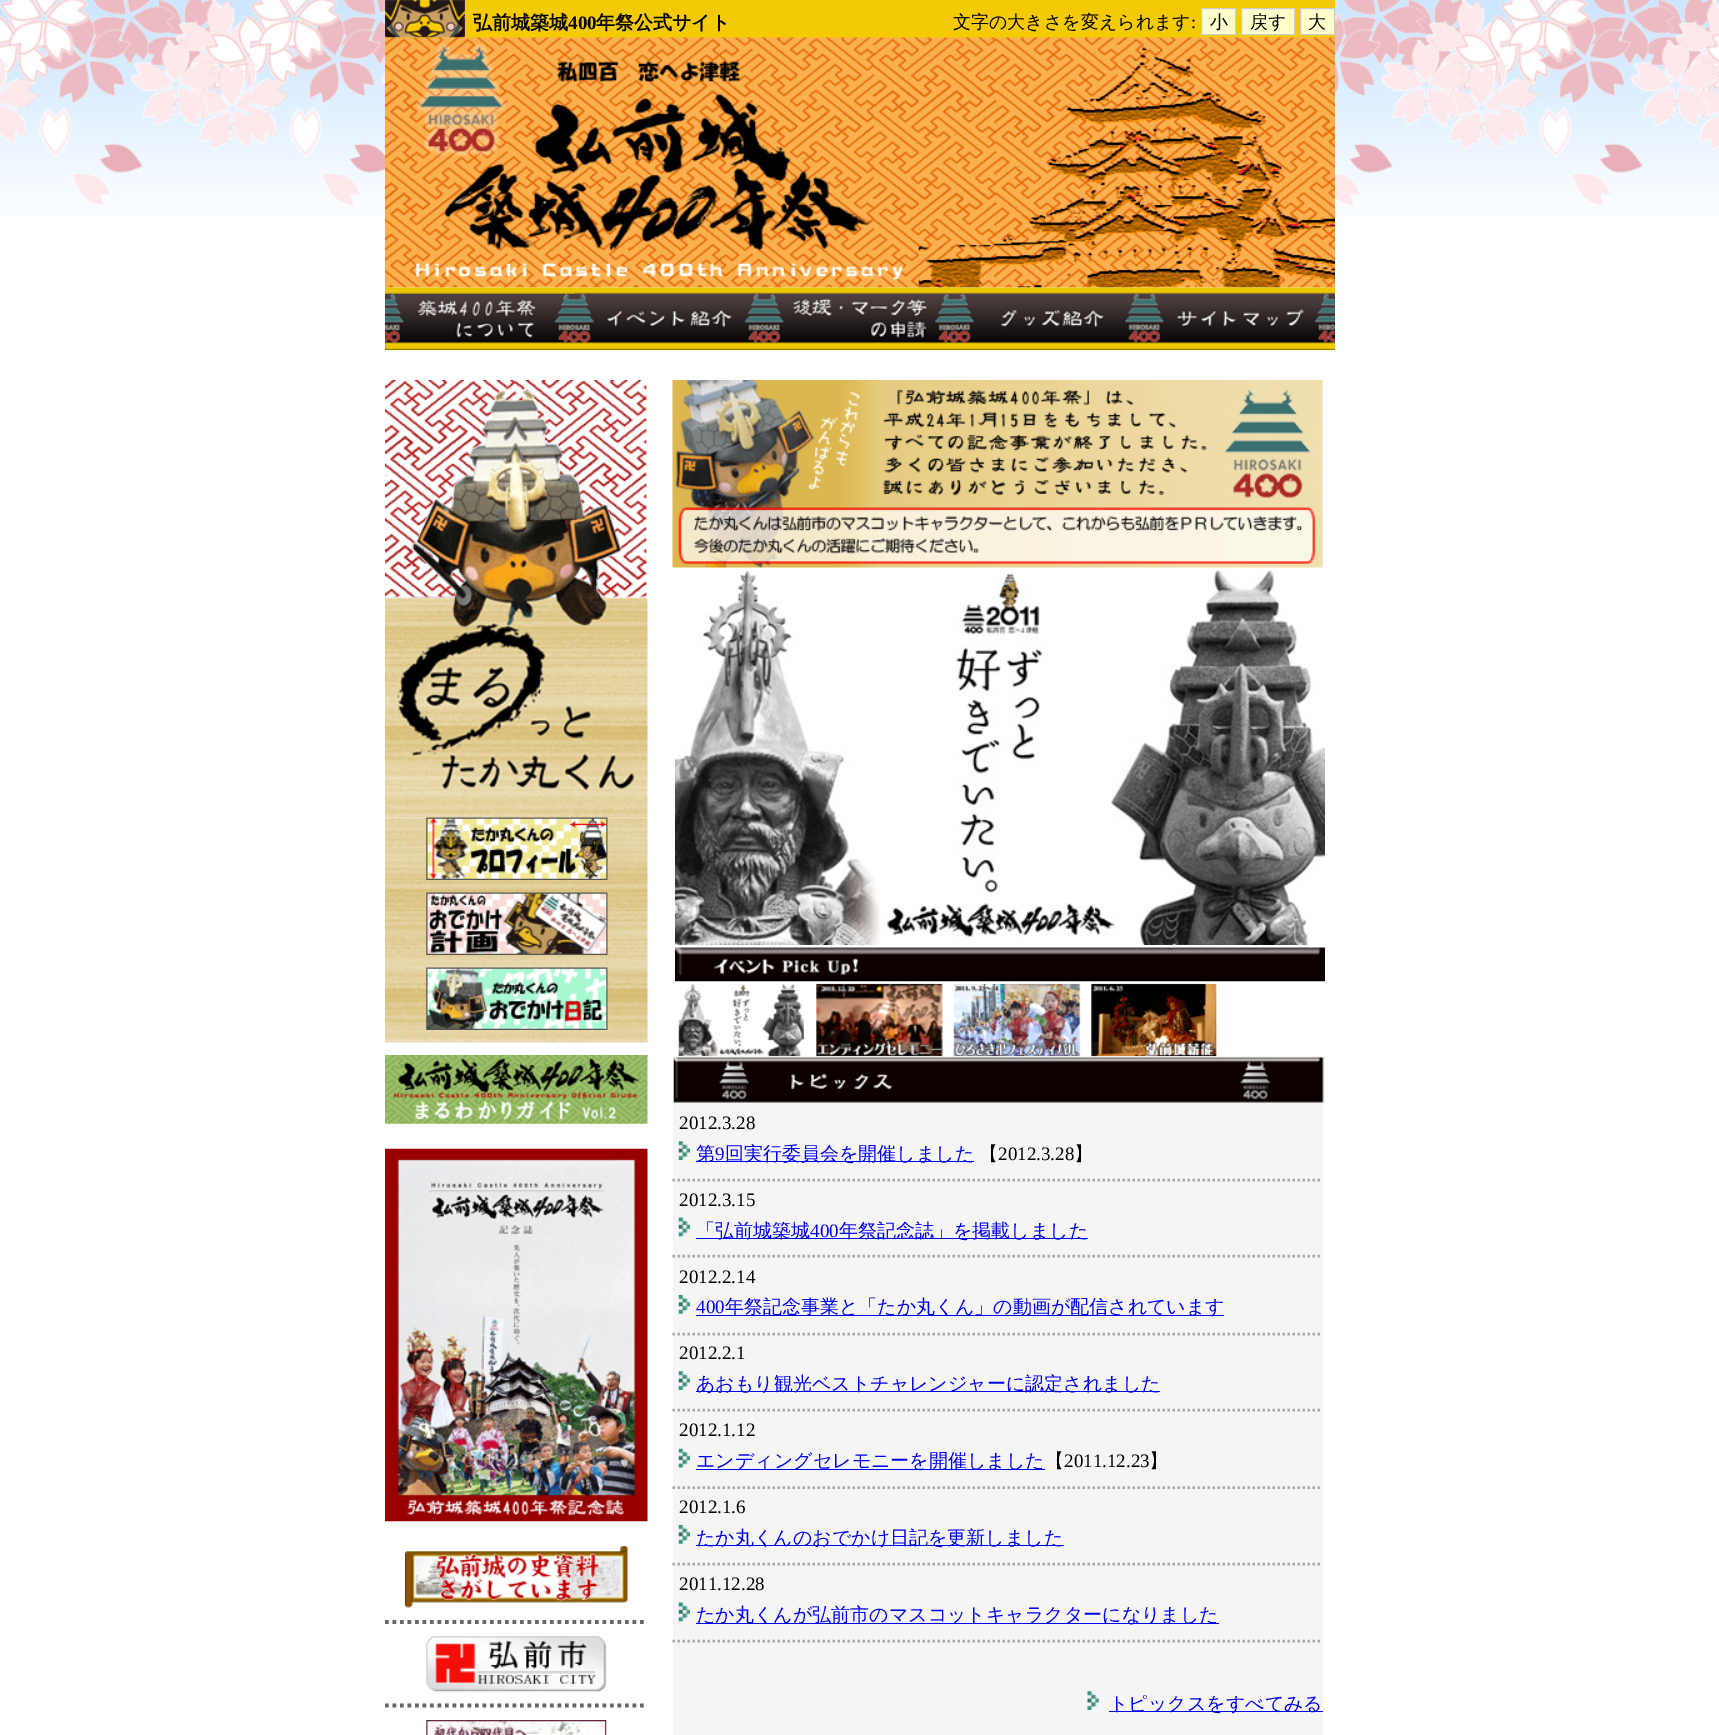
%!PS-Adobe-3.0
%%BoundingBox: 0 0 1719 1735
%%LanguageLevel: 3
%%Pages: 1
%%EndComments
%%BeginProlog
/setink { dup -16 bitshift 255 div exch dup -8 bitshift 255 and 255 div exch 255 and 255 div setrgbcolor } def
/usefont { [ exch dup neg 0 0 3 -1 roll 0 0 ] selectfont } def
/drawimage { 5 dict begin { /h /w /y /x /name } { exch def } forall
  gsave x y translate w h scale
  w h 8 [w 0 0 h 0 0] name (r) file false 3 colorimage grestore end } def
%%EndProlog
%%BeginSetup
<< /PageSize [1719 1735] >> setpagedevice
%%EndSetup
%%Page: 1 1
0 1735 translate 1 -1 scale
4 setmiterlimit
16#FFFFFF setink
0 0 1719 1735 rectfill
(img1.raw) 0 0 1719 217 drawimage
16#F4CA04 setink
385 0 950 38 rectfill
(img2.raw) 385 0 80 38 drawimage
/WenQuanYiZenHei-Bold 19 usefont
16#000000 setink
473 29 moveto (弘前城築城) show
/LiberationSerif-Bold 19 usefont
568 29 moveto (400) show
/WenQuanYiZenHei-Bold 19 usefont
596 29 moveto (年祭公式サイト) show
/WenQuanYiZenHei-Medium 18 usefont
953 28 moveto (文字の大きさを変えられます) show
/LiberationSerif-Regular 18 usefont
1191 28 moveto (:) show
16#FFFFCC setink
1201.5 8.5 moveto 1235.5 8.5 lineto 1235.5 34.5 lineto 1201.5 34.5 lineto closepath gsave fill grestore
16#CCCCCC setink
stroke
/WenQuanYiZenHei-Medium 18 usefont
16#000000 setink
1210 28 moveto (小) show
16#FFFFCC setink
1241.5 8.5 moveto 1294.5 8.5 lineto 1294.5 34.5 lineto 1241.5 34.5 lineto closepath gsave fill grestore
16#CCCCCC setink
stroke
16#000000 setink
1250 28 moveto (戻す) show
16#FFFFCC setink
1300.5 8.5 moveto 1334.5 8.5 lineto 1334.5 34.5 lineto 1300.5 34.5 lineto closepath gsave fill grestore
16#CCCCCC setink
stroke
16#000000 setink
1308 28 moveto (大) show
(img3.raw) 385 37 950 251 drawimage
(img4.raw) 385 287 190 63 drawimage
(img5.raw) 575 287 190 63 drawimage
(img6.raw) 765 287 190 63 drawimage
(img7.raw) 955 287 190 63 drawimage
(img8.raw) 1145 287 190 63 drawimage
(img10.raw) 385 817 263 226 drawimage
(img9.raw) 385 380 263 438 drawimage
(img11.raw) 426 817 182 63 drawimage
(img12.raw) 426 892 182 63 drawimage
(img13.raw) 426 967 182 63 drawimage
(img14.raw) 385 1055 263 69 drawimage
(img15.raw) 385 1148 263 374 drawimage
16#666666 setink
3.8 setlinewidth
[3.75 3.75] 0 setdash
385 1622 moveto 647.5 1622 lineto stroke
(img16.raw) 405 1546 223 62 drawimage
385 1705.5 moveto 647.5 1705.5 lineto stroke
(img17.raw) 426 1636 181 56 drawimage
(img18.raw) 426 1720 181 15 drawimage
(img19.raw) 672 380 651 188 drawimage
(img20.raw) 675 570 650 375 drawimage
(img21.raw) 675 947 650 35 drawimage
16#F5F5F5 setink
673 1056 652 48 rectfill
(img22.raw) 678 984 126 73 drawimage
(img23.raw) 816 983 127 74 drawimage
(img24.raw) 953 983 128 74 drawimage
(img25.raw) 1091 983 126 74 drawimage
(img26.raw) 673 1057 651 46 drawimage
673 1104 650 631 rectfill
16#A9A9A9 setink
2.5 setlinewidth
[2.5 2.5] 0 setdash
672.5 1180 moveto 1322.5 1180 lineto stroke
/LiberationSerif-Regular 19 usefont
16#000000 setink
679 1129 moveto (2012.3.28) show
(img27.raw) 678 1141 12 19 drawimage
16#0000EE setink
696 1161 278 1 rectfill
/WenQuanYiZenHei-Medium 19 usefont
696 1160 moveto (第) show
/LiberationSerif-Regular 19 usefont
715 1160 moveto (9) show
/WenQuanYiZenHei-Medium 19 usefont
725 1160 moveto (回実行委員会を開催しました) show
16#000000 setink
979 1160 moveto (【) show
/LiberationSerif-Regular 19 usefont
998 1160 moveto (2012.3.28) show
/WenQuanYiZenHei-Medium 19 usefont
1074 1160 moveto (】) show
16#A9A9A9 setink
672.5 1256 moveto 1322.5 1256 lineto stroke
/LiberationSerif-Regular 19 usefont
16#000000 setink
679 1206 moveto (2012.3.15) show
(img28.raw) 678 1217 12 20 drawimage
16#0000EE setink
696 1238 392 1 rectfill
/WenQuanYiZenHei-Medium 19 usefont
696 1237 moveto (「弘前城築城) show
/LiberationSerif-Regular 19 usefont
810 1237 moveto (400) show
/WenQuanYiZenHei-Medium 19 usefont
839 1237 moveto (年祭記念誌」を掲載しました) show
16#A9A9A9 setink
672.5 1334 moveto 1322.5 1334 lineto stroke
/LiberationSerif-Regular 19 usefont
16#000000 setink
679 1283 moveto (2012.2.14) show
(img29.raw) 678 1295 12 19 drawimage
16#0000EE setink
696 1313 moveto (400) show
696 1315 528 1 rectfill
/WenQuanYiZenHei-Medium 19 usefont
725 1313 moveto (年祭記念事業と「たか丸くん」の動画が配信されています) show
16#A9A9A9 setink
672.5 1410 moveto 1322.5 1410 lineto stroke
/LiberationSerif-Regular 19 usefont
16#000000 setink
679 1359 moveto (2012.2.1) show
(img27.raw) 678 1371 12 19 drawimage
16#0000EE setink
696 1391 464 1 rectfill
/WenQuanYiZenHei-Medium 19 usefont
696 1390 moveto (あおもり観光ベストチャレンジャーに認定されました) show
16#A9A9A9 setink
672.5 1487.5 moveto 1322.5 1487.5 lineto stroke
/LiberationSerif-Regular 19 usefont
16#000000 setink
679 1436 moveto (2012.1.12) show
(img30.raw) 678 1448 12 20 drawimage
16#0000EE setink
696 1469 349 1 rectfill
/WenQuanYiZenHei-Medium 19 usefont
696 1467 moveto (エンディングセレモニーを開催しました) show
16#000000 setink
1045 1467 moveto (【) show
/LiberationSerif-Regular 19 usefont
1064 1467 moveto (2011.12.23) show
/WenQuanYiZenHei-Medium 19 usefont
1149 1467 moveto (】) show
16#A9A9A9 setink
672.5 1564 moveto 1322.5 1564 lineto stroke
/LiberationSerif-Regular 19 usefont
16#000000 setink
679 1513 moveto (2012.1.6) show
(img29.raw) 678 1525 12 19 drawimage
16#0000EE setink
696 1545 368 1 rectfill
/WenQuanYiZenHei-Medium 19 usefont
696 1544 moveto (たか丸くんのおでかけ日記を更新しました) show
16#A9A9A9 setink
672.5 1641 moveto 1322.5 1641 lineto stroke
/LiberationSerif-Regular 19 usefont
16#000000 setink
679 1590 moveto (2011.12.28) show
(img28.raw) 678 1602 12 20 drawimage
16#0000EE setink
696 1623 523 1 rectfill
/WenQuanYiZenHei-Medium 19 usefont
696 1621 moveto (たか丸くんが弘前市のマスコットキャラクターになりました) show
(img31.raw) 1087 1691 12 19 drawimage
1109 1711 214 1 rectfill
1109 1710 moveto (トピックスをすべてみる) show
showpage
%%EOF
